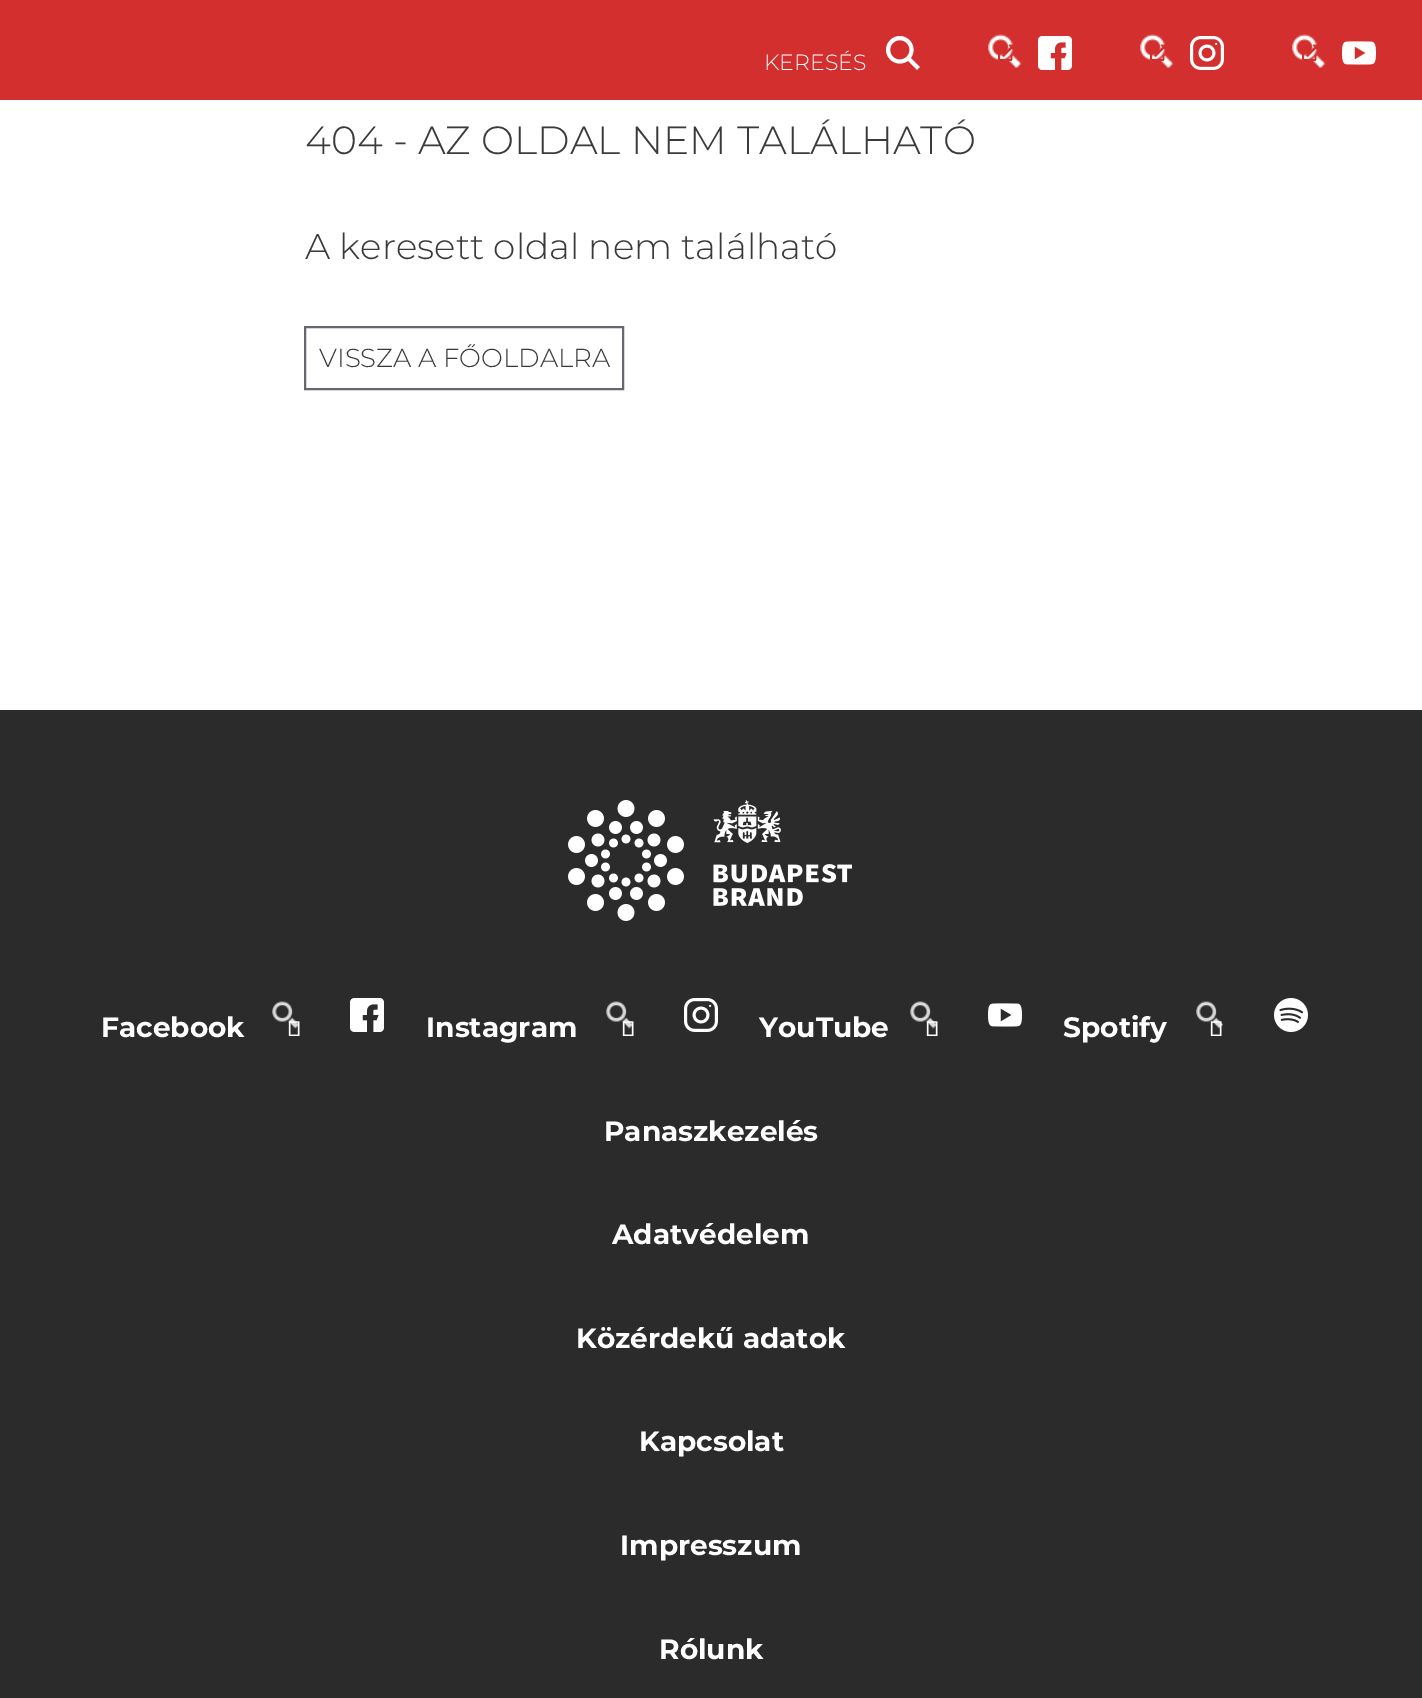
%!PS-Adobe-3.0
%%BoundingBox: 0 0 1422 1698
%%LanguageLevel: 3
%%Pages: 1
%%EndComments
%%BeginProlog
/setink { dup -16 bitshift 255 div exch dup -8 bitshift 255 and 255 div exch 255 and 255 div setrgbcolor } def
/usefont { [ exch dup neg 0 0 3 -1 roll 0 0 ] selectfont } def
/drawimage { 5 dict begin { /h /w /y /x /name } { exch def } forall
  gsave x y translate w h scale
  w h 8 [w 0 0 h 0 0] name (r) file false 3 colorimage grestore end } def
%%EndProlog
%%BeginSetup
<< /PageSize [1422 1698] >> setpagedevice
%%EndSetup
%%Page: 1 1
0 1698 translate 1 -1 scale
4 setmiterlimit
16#FFFFFF setink
0 0 1422 1698 rectfill
16#D32F2F setink
0 0 1422 100 rectfill
/Montserrat-Light 22 usefont
16#FFFFFF setink
764 70 moveto (KERESÉS) show
(img1.raw) 886 36 34 34 drawimage
(img2.raw) 988 34 34 34 drawimage
(img3.raw) 1038 36 34 34 drawimage
(img4.raw) 998 44 16 17 drawimage
(img2.raw) 1140 34 34 34 drawimage
(img5.raw) 1190 36 34 34 drawimage
(img4.raw) 1150 44 16 17 drawimage
(img2.raw) 1292 34 34 34 drawimage
(img6.raw) 1342 41 34 24 drawimage
(img4.raw) 1302 44 16 17 drawimage
/Montserrat-Light 39.4 usefont
16#3A3A3A setink
305 154 moveto (404 - AZ OLDAL NEM TALÁLHATÓ) show
/Montserrat-Light 35.8 usefont
305 259 moveto (A keresett oldal nem található) show
16#666672 setink
2 setlinewidth
305 327 318 62 rectstroke
/Montserrat-Light 26 usefont
16#3A3A3A setink
319 367 moveto (VISSZA A FŐOLDALRA) show
16#2B2B2B setink
0 710 1422 988 rectfill
(img7.raw) 568 800 284 121 drawimage
/Montserrat-Bold 28 usefont
16#FFFFFF setink
101 1037 moveto (Facebook) show
(img8.raw) 272 1001 28 28 drawimage
(img9.raw) 288 1021 12 15 drawimage
(img10.raw) 350 998 34 34 drawimage
426 1037 moveto (Instagram) show
(img8.raw) 606 1001 28 28 drawimage
(img9.raw) 622 1021 12 15 drawimage
(img11.raw) 684 998 34 34 drawimage
759 1037 moveto (YouTube) show
(img8.raw) 910 1001 28 28 drawimage
(img9.raw) 926 1021 12 15 drawimage
(img12.raw) 988 1003 34 24 drawimage
1063 1037 moveto (Spotify) show
(img8.raw) 1196 1001 28 28 drawimage
(img13.raw) 1210 1021 12 15 drawimage
(img14.raw) 1274 998 34 34 drawimage
[
    [(Panaszkezelés) 604 1141]
    [(Adatvédelem) 612 1244]
    [(Közérdekű adatok) 576 1348]
    [(Kapcsolat) 639 1451]
    [(Impresszum) 620 1555]
    [(Rólunk) 659 1659]
] { aload pop moveto show } forall
showpage
%%EOF
